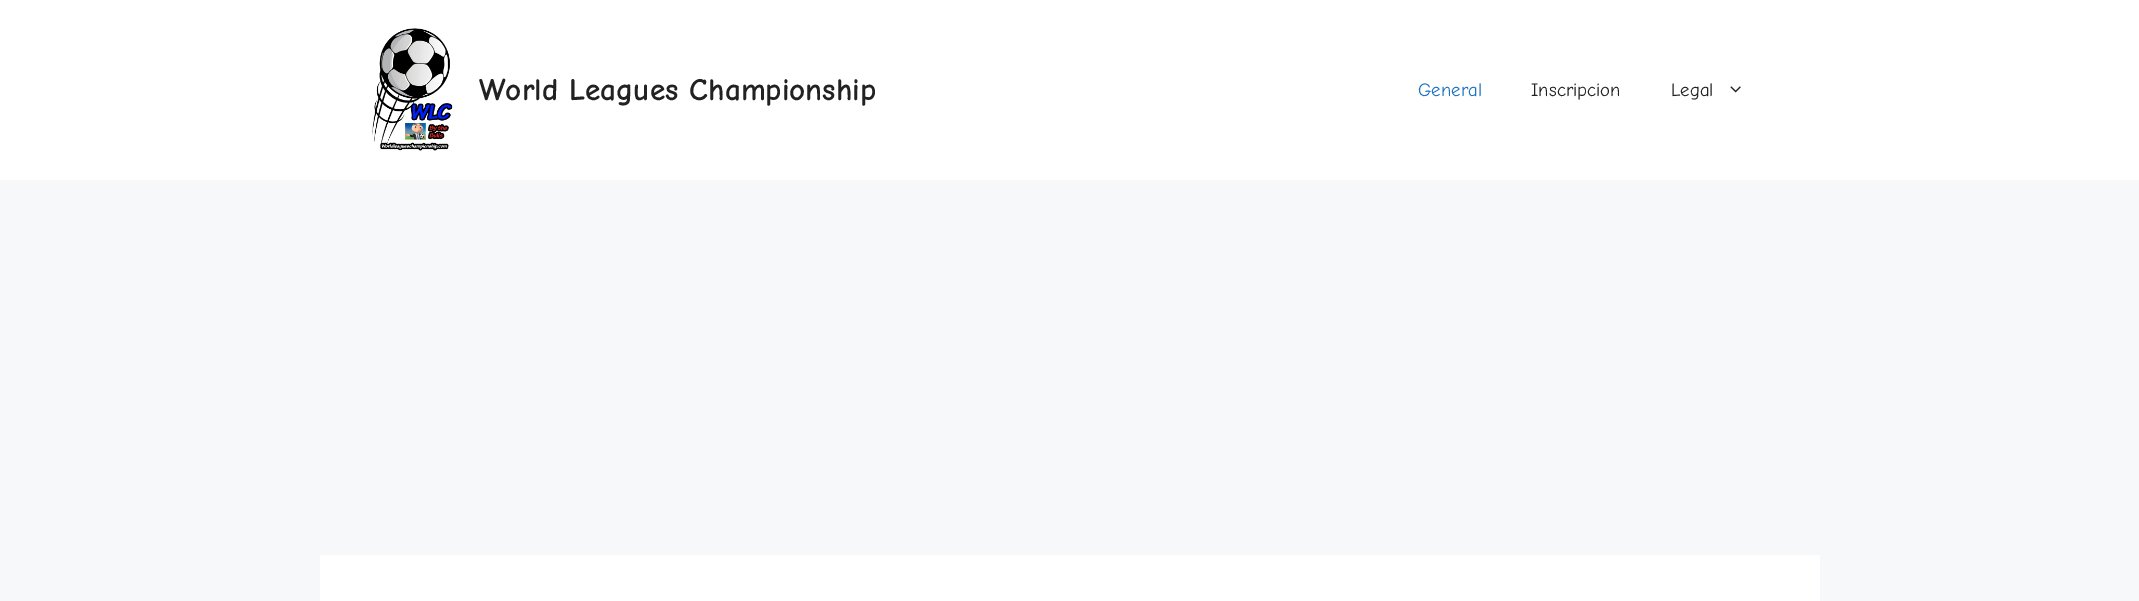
%!PS-Adobe-3.0
%%BoundingBox: 0 0 2139 601
%%LanguageLevel: 3
%%Pages: 1
%%EndComments
%%BeginProlog
/setink { dup -16 bitshift 255 div exch dup -8 bitshift 255 and 255 div exch 255 and 255 div setrgbcolor } def
/usefont { [ exch dup neg 0 0 3 -1 roll 0 0 ] selectfont } def
/drawimage { 5 dict begin { /h /w /y /x /name } { exch def } forall
  gsave x y translate w h scale
  w h 8 [w 0 0 h 0 0] name (r) file false 3 colorimage grestore end } def
%%EndProlog
%%BeginSetup
<< /PageSize [2139 601] >> setpagedevice
%%EndSetup
%%Page: 1 1
0 601 translate 1 -1 scale
4 setmiterlimit
16#F7F8F9 setink
0 0 2139 601 rectfill
16#FFFFFF setink
0 0 2139 180 rectfill
(img1.raw) 372 28 81 123 drawimage
/ComicNeue-Bold 31.25 usefont
16#222222 setink
479 100 moveto (World Leagues Championship) show
/ComicNeue-Regular 18.75 usefont
16#1E73BE setink
1418 96 moveto (General) show
16#222222 setink
1531 96 moveto (Inscripcion) show
1671 96 moveto (Legal) show
(img2.raw) 1730 86 11 7 drawimage
16#FFFFFF setink
320 555 1500 46 rectfill
showpage
%%EOF
